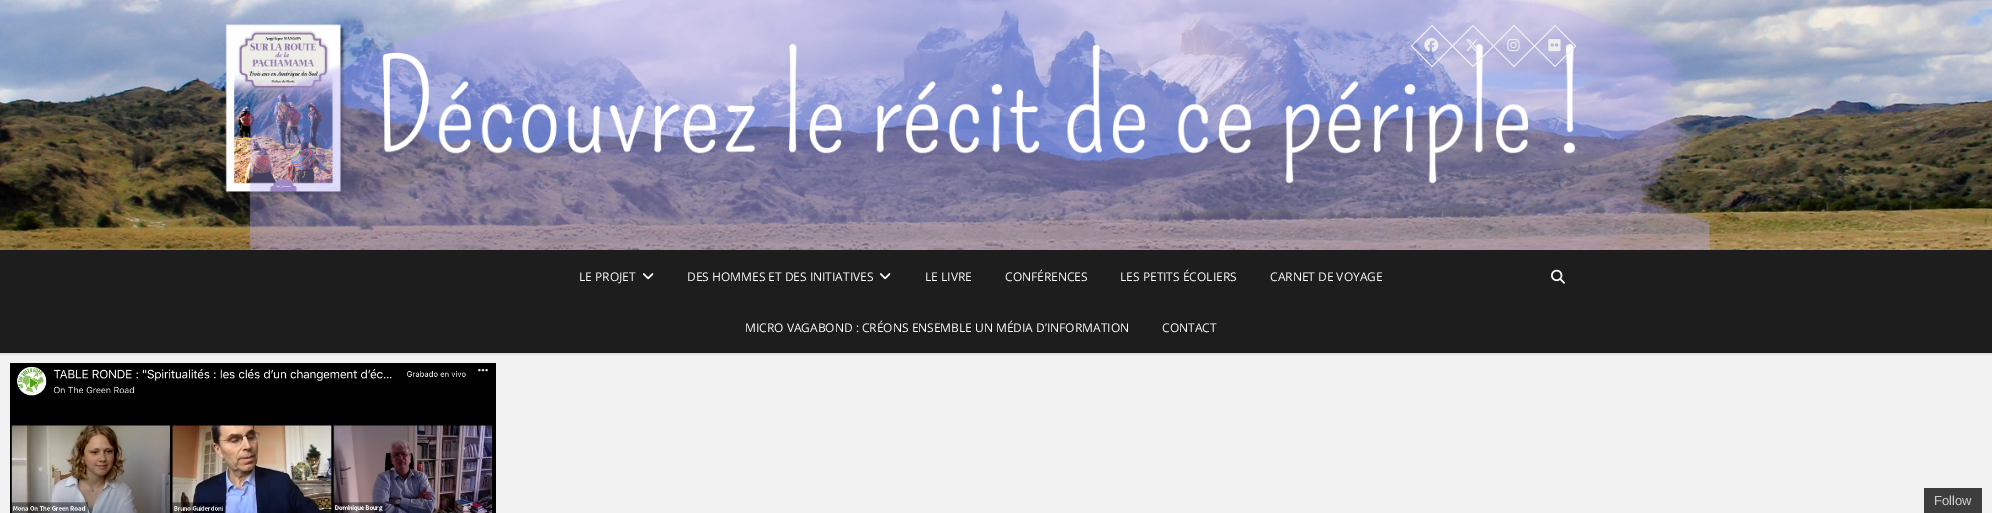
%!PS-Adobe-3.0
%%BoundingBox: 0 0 1992 513
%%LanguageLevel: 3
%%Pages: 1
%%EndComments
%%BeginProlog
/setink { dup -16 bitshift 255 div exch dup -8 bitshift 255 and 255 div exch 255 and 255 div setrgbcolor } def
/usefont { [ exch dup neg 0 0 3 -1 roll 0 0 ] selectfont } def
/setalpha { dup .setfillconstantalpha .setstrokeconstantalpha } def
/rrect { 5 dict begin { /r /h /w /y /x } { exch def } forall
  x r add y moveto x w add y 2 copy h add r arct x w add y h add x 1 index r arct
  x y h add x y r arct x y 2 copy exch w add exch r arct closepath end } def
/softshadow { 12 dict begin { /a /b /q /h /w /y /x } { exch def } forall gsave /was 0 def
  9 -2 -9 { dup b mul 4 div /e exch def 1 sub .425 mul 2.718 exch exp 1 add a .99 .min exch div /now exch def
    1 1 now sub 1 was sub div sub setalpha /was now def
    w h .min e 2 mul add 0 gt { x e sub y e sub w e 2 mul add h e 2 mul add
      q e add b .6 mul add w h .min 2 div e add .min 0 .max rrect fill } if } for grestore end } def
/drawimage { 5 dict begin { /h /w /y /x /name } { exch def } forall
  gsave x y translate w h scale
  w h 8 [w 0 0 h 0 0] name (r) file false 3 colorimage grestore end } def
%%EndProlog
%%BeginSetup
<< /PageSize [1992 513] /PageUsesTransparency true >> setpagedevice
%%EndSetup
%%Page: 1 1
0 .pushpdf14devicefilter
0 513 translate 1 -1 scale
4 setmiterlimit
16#FFFFFF setink
0 0 1992 513 rectfill
(img1.raw) 0 0 1992 250 drawimage
16#EEEEEE setink
1411.5 46 moveto 1432 25.5 lineto 1452.5 46 lineto 1432 66.5 lineto closepath stroke
(img2.raw) 1424 38 15 14 drawimage
1452.5 46 moveto 1473 25.5 lineto 1493.5 46 lineto 1473 66.5 lineto closepath stroke
(img3.raw) 1466 39 13 12 drawimage
1493.5 46 moveto 1514 25.5 lineto 1534.5 46 lineto 1514 66.5 lineto closepath stroke
(img4.raw) 1507 39 13 13 drawimage
1534.5 46 moveto 1555 25.5 lineto 1575.5 46 lineto 1555 66.5 lineto closepath stroke
(img5.raw) 1548 39 13 13 drawimage
16#F2F2F2 setink
0 353 1992 160 rectfill
16#000000 setink
0 251 1992 103 0 1 0.15 softshadow
16#1D1D1D setink
0 250 1992 103 rectfill
/OpenSans-Regular 12 usefont
16#FFFFFF setink
579 281 moveto (LE PROJET) show
(img6.raw) 643 273 11 7 drawimage
687 281 moveto (DES HOMMES ET DES INITIATIVES) show
(img6.raw) 880 273 11 7 drawimage
[
    [(LE LIVRE) 925 281]
    [(CONFÉRENCES) 1005 281]
    [(LES PETITS ÉCOLIERS) 1120 281]
    [(CARNET DE VOYAGE) 1270 281]
    [(MICRO VAGABOND : CRÉONS ENSEMBLE UN MÉDIA D’INFORMATION) 745 332]
    [(CONTACT) 1162 332]
] { aload pop moveto show } forall
(img7.raw) 1551 269 14 15 drawimage
(img8.raw) 10 363 486 150 drawimage
16#3D3D3D setink
1924 488 58 25 rectfill
/LiberationSans-Regular 13 usefont
16#CECECE setink
1934 505 moveto (Follow) show
.poppdf14devicefilter showpage
%%EOF
